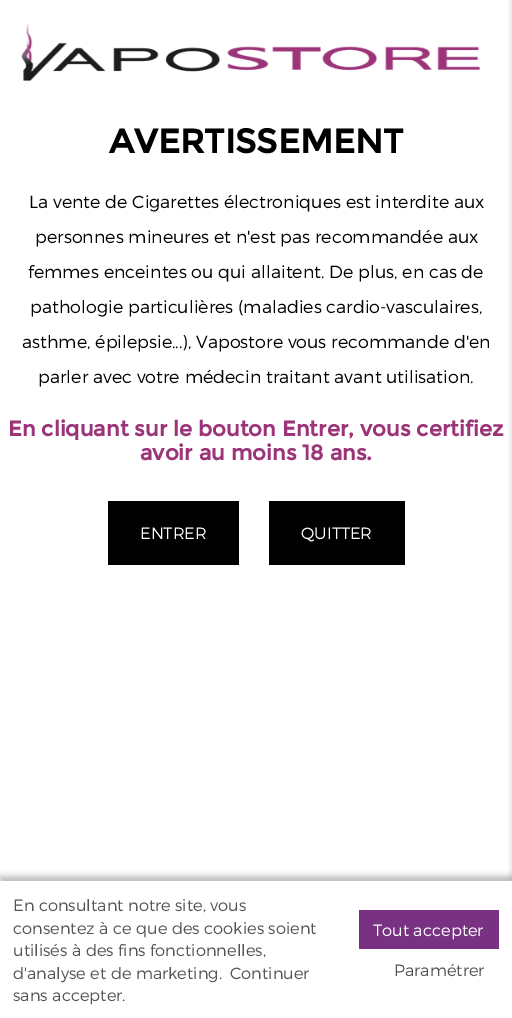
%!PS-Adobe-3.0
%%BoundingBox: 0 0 512 1018
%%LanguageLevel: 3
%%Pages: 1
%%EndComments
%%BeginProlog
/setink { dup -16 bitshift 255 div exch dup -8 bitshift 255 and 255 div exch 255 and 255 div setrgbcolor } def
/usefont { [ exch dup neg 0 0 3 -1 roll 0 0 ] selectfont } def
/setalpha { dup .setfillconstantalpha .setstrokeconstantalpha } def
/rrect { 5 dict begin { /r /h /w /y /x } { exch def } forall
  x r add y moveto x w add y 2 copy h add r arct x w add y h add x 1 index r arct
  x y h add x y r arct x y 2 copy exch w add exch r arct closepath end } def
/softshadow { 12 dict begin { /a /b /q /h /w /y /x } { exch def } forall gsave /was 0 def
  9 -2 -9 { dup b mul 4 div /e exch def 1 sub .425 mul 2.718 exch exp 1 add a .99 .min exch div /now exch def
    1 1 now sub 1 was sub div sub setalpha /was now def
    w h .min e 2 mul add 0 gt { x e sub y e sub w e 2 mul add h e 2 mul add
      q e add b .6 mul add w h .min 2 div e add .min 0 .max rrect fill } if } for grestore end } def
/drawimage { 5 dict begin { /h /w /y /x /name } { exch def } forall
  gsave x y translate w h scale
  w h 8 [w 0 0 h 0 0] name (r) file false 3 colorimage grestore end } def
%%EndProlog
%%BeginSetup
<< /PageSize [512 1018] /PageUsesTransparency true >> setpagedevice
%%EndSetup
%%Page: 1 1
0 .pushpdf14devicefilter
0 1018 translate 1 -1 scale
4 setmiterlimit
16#FFFFFF setink
0 0 512 1018 rectfill
(img1.raw) 21 23 459 58 drawimage
/Montserrat-Bold 33.75 usefont
16#000000 setink
109 153 moveto (AVERTISSEMENT) show
/Montserrat-Light 17.5 usefont
[
    [(La vente de Cigarettes électroniques est interdite aux) 29 208]
    [(personnes mineures et n'est pas recommandée aux) 35 243]
    [(femmes enceintes ou qui allaitent. De plus, en cas de) 28 278]
    [(pathologie particulières \(maladies cardio-vasculaires,) 30 313]
    [(asthme, épilepsie...\), Vapostore vous recommande d'en) 22 348]
    [(parler avec votre médecin traitant avant utilisation.) 38 383]
] { aload pop moveto show } forall
/Montserrat-Bold 21.25 usefont
16#9C3479 setink
8 436 moveto (En cliquant sur le bouton Entrer, vous certifiez) show
140 460 moveto (avoir au moins 18 ans.) show
16#000000 setink
108 501 131 64 rectfill
/Montserrat-Light 16.25 usefont
16#FFFFFF setink
140 539 moveto (ENTRER) show
16#000000 setink
269 501 136 64 rectfill
16#FFFFFF setink
301 539 moveto (QUITTER) show
16#000000 setink
0 876 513 138 0 3 0.25 softshadow
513 -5 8 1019 0 3 0.25 softshadow
16#FFFFFF setink
0 881 512 137 rectfill
16#555555 setink
[
    [(En consultant notre site, vous) 13 911]
    [(consentez à ce que des cookies soient) 13 934]
    [(utilisés à des fins fonctionnelles,) 13 956]
    [(d'analyse et de marketing.) 13 979]
    [(Continuer) 230 979]
    [(sans accepter.) 13 1001]
] { aload pop moveto show } forall
16#793282 setink
359 910 140 39 rectfill
16#FFFFFF setink
373 936 moveto (Tout accepter) show
16#555555 setink
394 976 moveto (Paramétrer) show
.poppdf14devicefilter showpage
%%EOF
